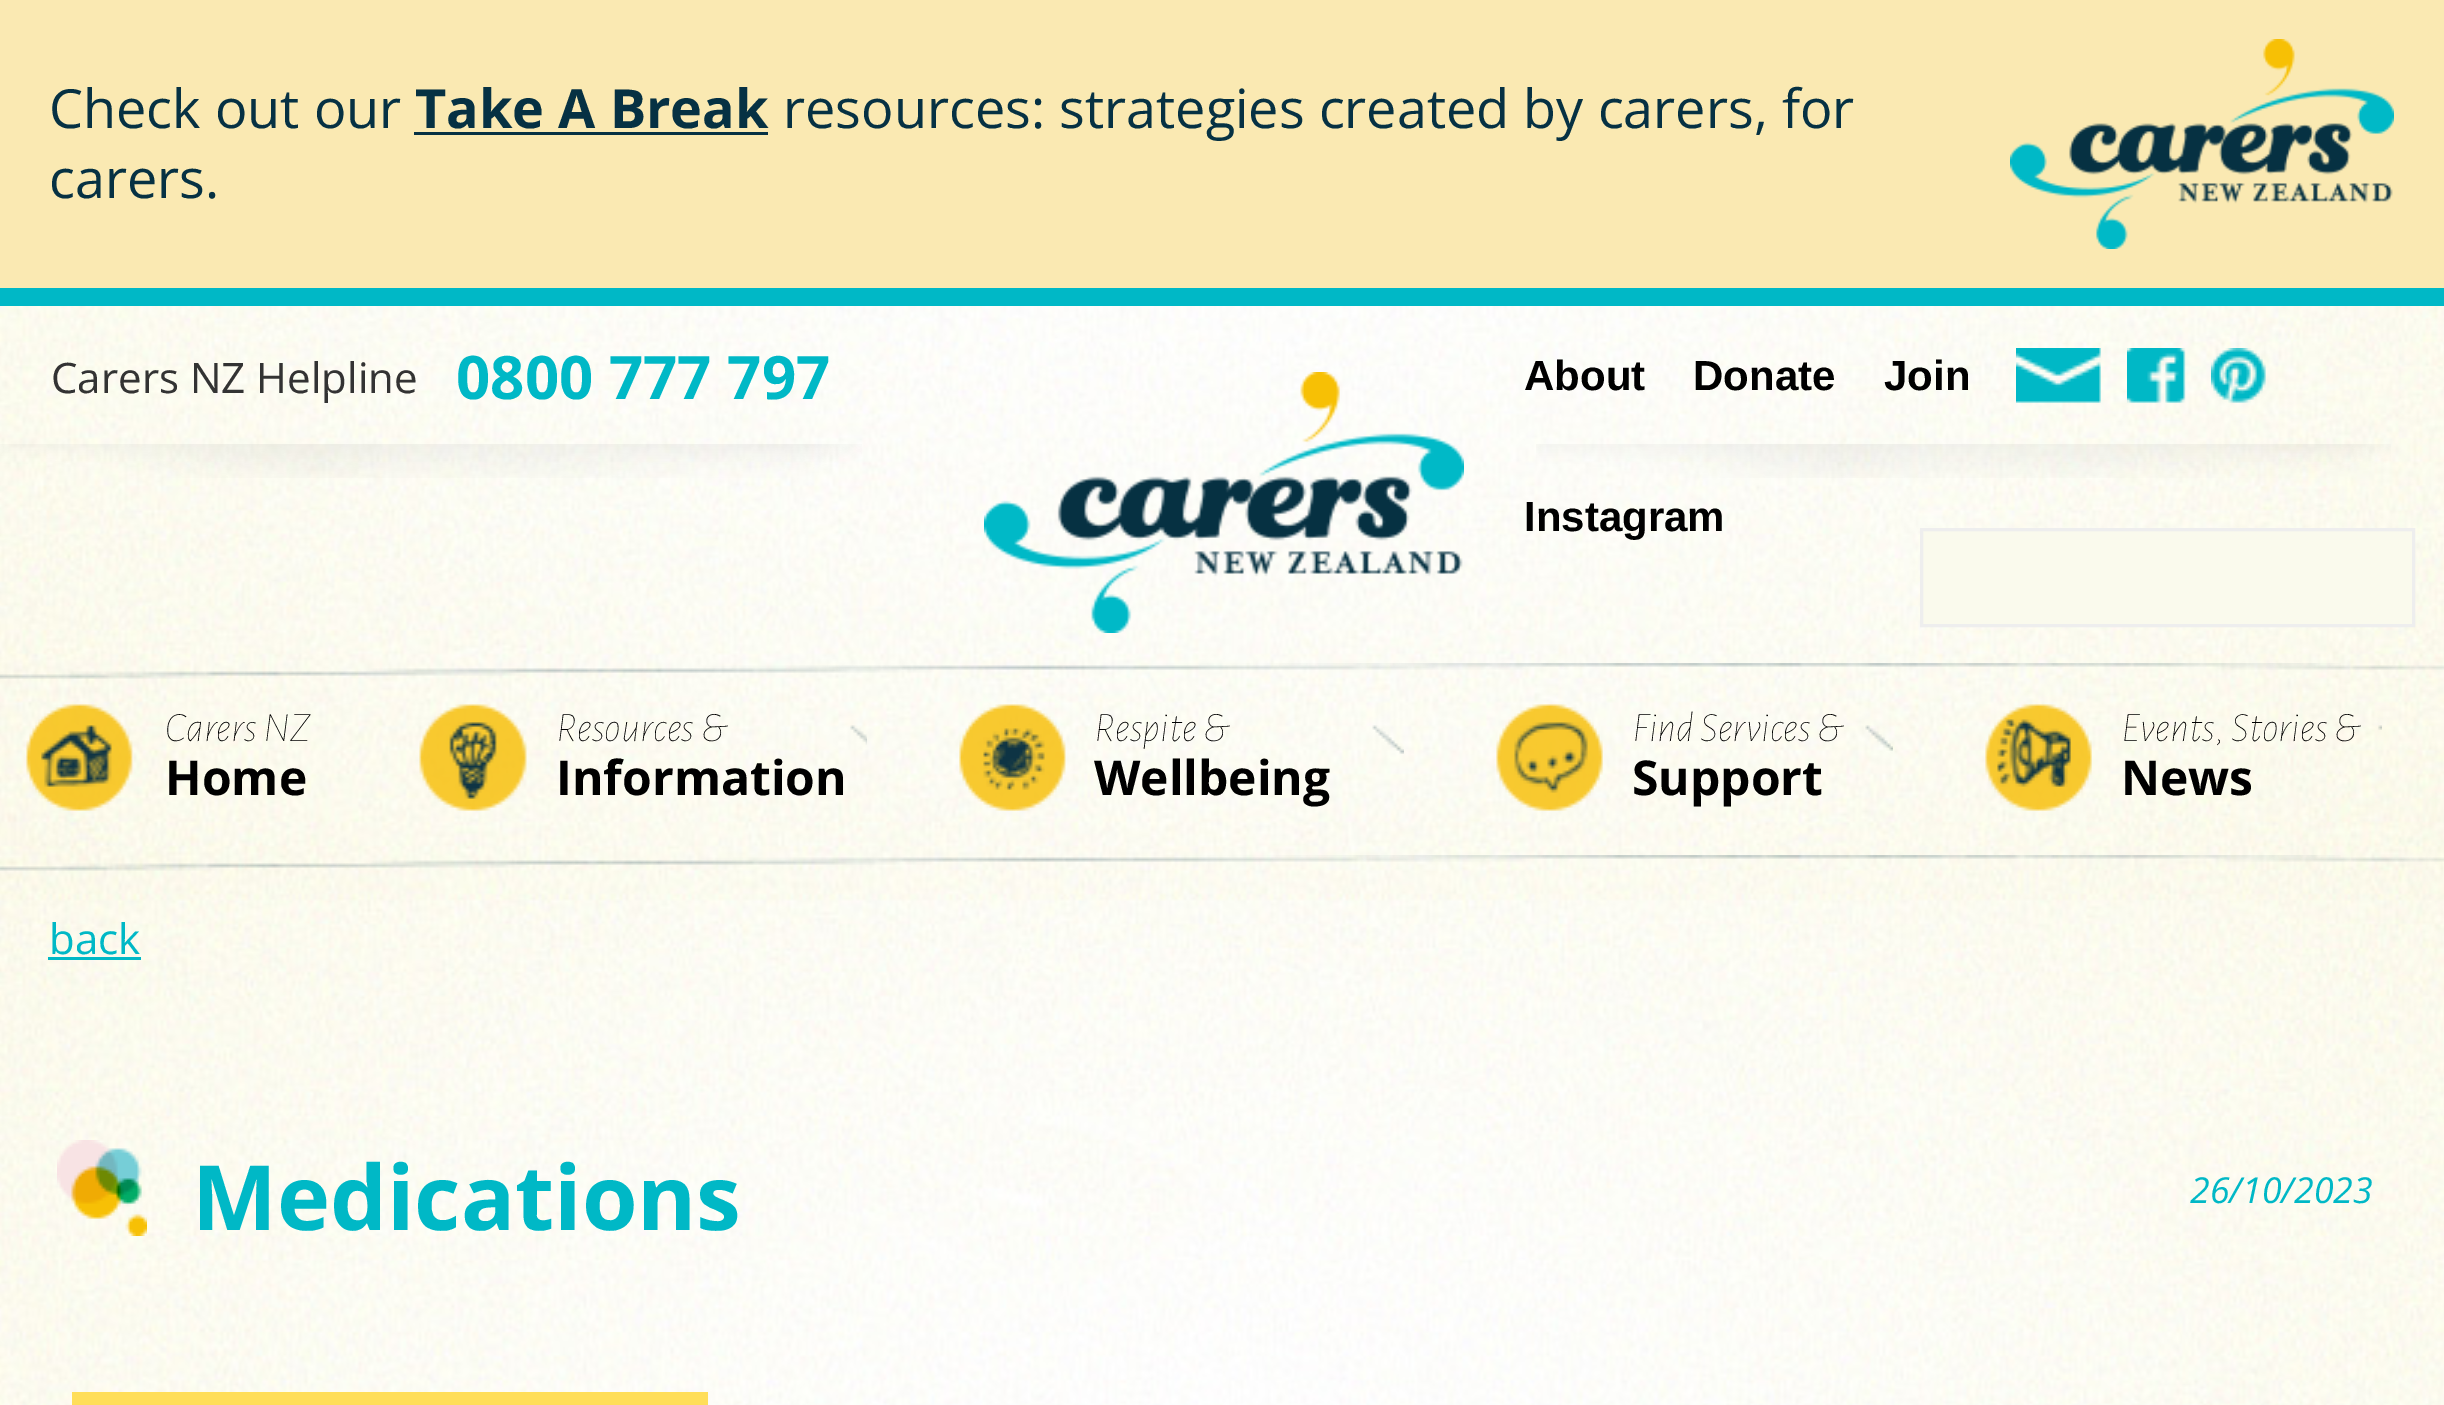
%!PS-Adobe-3.0
%%BoundingBox: 0 0 2444 1405
%%LanguageLevel: 3
%%Pages: 1
%%EndComments
%%BeginProlog
/setink { dup -16 bitshift 255 div exch dup -8 bitshift 255 and 255 div exch 255 and 255 div setrgbcolor } def
/usefont { [ exch dup neg 0 0 3 -1 roll 0 0 ] selectfont } def
/drawimage { 5 dict begin { /h /w /y /x /name } { exch def } forall
  gsave x y translate w h scale
  w h 8 [w 0 0 h 0 0] name (r) file false 3 colorimage grestore end } def
%%EndProlog
%%BeginSetup
<< /PageSize [2444 1405] >> setpagedevice
%%EndSetup
%%Page: 1 1
0 1405 translate 1 -1 scale
4 setmiterlimit
16#FFFFFF setink
0 0 2444 1405 rectfill
(img1.raw) 0 306 2444 1099 drawimage
16#FAE9B2 setink
0 0 2444 288 rectfill
(img2.raw) 2010 39 384 210 drawimage
/OpenSans-Regular 54 usefont
16#063143 setink
49 128 moveto (Check out our) show
/OpenSans-Bold 54 usefont
415 128 moveto (Take A Break) show
414 132 354 3 rectfill
/OpenSans-Regular 54 usefont
783 128 moveto (resources: strategies created by carers, for) show
49 198 moveto (carers.) show
(img3.raw) 0 855 2444 16 drawimage
16#00B8C6 setink
0 288 2444 18 rectfill
(img4.raw) 0 444 862 34 drawimage
/OpenSans-Regular 42 usefont
16#333333 setink
51 393 moveto (Carers NZ Helpline) show
/OpenSans-Bold 60 usefont
16#00B8C6 setink
456 399 moveto (0800 777 797) show
(img5.raw) 984 372 480 261 drawimage
(img6.raw) 1536 444 855 34 drawimage
/LiberationSans-Bold 42 usefont
16#000000 setink
[
    [(About) 1524 390]
    [(Donate) 1693 390]
    [(Join) 1884 390]
] { aload pop moveto show } forall
(img7.raw) 2016 348 85 55 drawimage
(img8.raw) 2127 348 59 55 drawimage
(img9.raw) 2211 348 55 55 drawimage
1524 531 moveto (Instagram) show
16#FAFAED setink
1921.5 529.5 moveto 2413.5 529.5 lineto 2413.5 625.5 lineto 1921.5 625.5 lineto closepath gsave fill grestore
16#EEEEEE setink
3 setlinewidth
stroke
(img10.raw) 0 663 2444 16 drawimage
(img11.raw) 26 704 107 107 drawimage
/AlegreyaSans-ThinItalic 42 usefont
16#000000 setink
165 741 moveto (Carers NZ) show
/OpenSans-Bold 48 usefont
165 795 moveto (Home) show
(img12.raw) 419 704 448 107 drawimage
/AlegreyaSans-ThinItalic 42 usefont
556 741 moveto (Resources &) show
/OpenSans-Bold 48 usefont
556 795 moveto (Information) show
(img13.raw) 959 704 445 107 drawimage
/AlegreyaSans-ThinItalic 42 usefont
1094 741 moveto (Respite &) show
/OpenSans-Bold 48 usefont
1094 795 moveto (Wellbeing) show
(img14.raw) 1496 704 397 107 drawimage
/AlegreyaSans-ThinItalic 42 usefont
1632 741 moveto (Find Services &) show
/OpenSans-Bold 48 usefont
1632 795 moveto (Support) show
(img15.raw) 1985 704 397 107 drawimage
/AlegreyaSans-ThinItalic 42 usefont
2121 741 moveto (Events, Stories &) show
/OpenSans-Bold 48 usefont
2121 795 moveto (News) show
/OpenSans-Regular 42 usefont
16#00B8C6 setink
49 954 moveto (back) show
48 957 93 3 rectfill
(img16.raw) 57 1140 90 96 drawimage
/OpenSans-Bold 90 usefont
192 1230 moveto (Medications) show
/OpenSans-Italic 35.75 usefont
2190 1203 moveto (26/10/2023) show
16#FFDE59 setink
72 1392 636 13 rectfill
showpage
%%EOF
